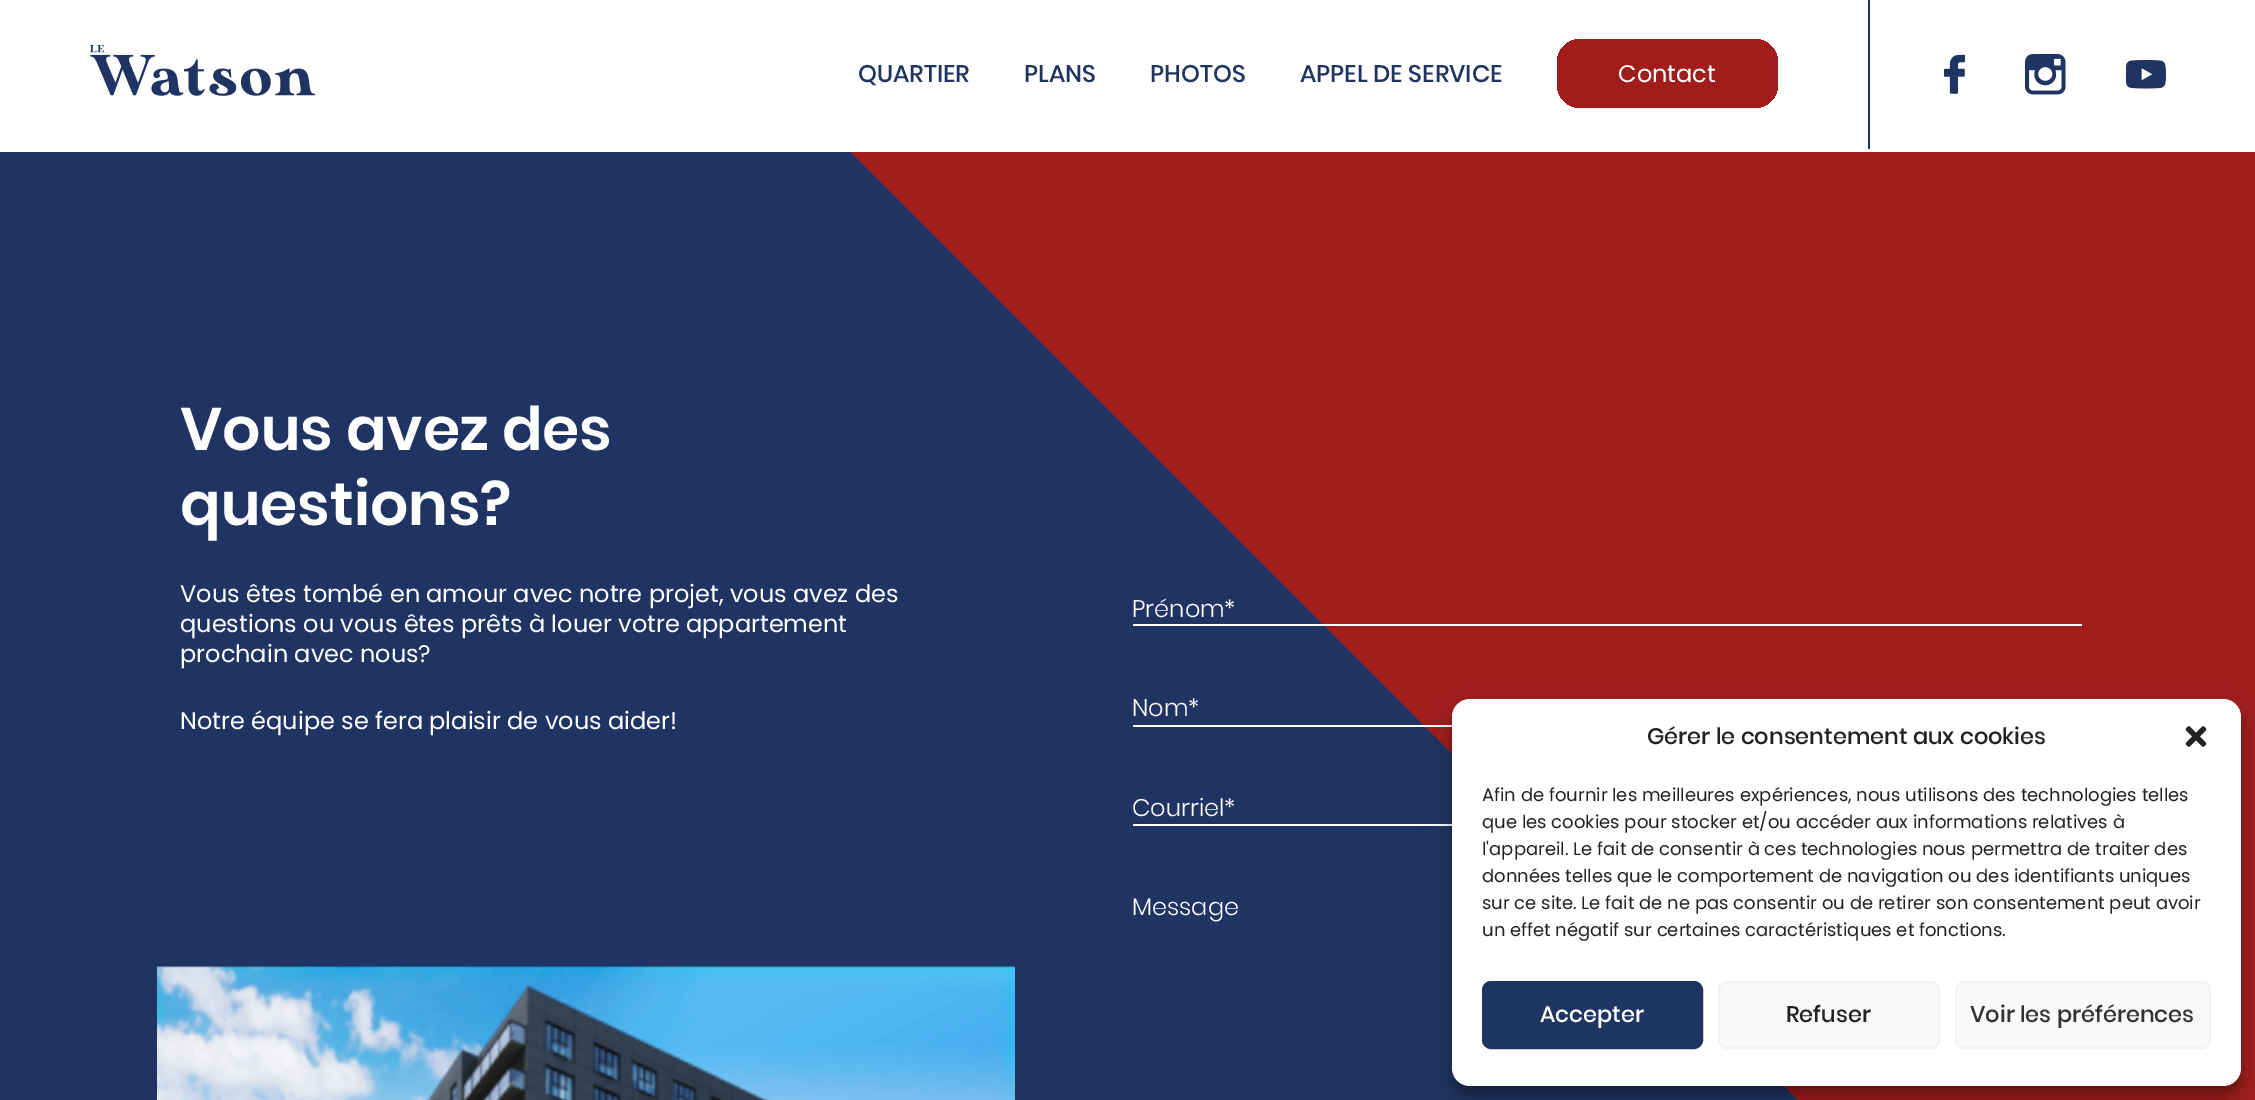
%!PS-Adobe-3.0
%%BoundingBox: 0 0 2255 1100
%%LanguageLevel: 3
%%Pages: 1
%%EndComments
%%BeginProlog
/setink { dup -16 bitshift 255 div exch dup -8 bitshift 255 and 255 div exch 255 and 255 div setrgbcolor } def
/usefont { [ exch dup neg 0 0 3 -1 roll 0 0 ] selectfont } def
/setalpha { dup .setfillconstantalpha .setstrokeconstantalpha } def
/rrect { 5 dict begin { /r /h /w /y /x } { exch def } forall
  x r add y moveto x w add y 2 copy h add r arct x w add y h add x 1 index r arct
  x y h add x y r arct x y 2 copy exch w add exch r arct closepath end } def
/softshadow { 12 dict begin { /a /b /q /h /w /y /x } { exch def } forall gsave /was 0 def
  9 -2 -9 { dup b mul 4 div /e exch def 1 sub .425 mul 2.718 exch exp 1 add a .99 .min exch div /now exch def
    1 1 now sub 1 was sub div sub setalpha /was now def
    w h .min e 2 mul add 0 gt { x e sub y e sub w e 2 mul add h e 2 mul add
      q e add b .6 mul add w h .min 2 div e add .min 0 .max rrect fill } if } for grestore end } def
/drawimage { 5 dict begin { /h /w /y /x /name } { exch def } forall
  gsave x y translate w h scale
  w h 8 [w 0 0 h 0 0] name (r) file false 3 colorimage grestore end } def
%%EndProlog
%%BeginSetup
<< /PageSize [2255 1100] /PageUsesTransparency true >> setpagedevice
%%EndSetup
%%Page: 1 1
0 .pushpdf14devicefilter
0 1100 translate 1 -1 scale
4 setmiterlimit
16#1F3462 setink
0 0 2255 1100 rectfill
16#A01D1C setink
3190 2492 moveto 0 -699 lineto 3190 -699 lineto closepath fill
16#FFFFFF setink
0 0 2255 152 rectfill
(img1.raw) 90 45 225 51 drawimage
/Poppins-Medium 24 usefont
16#1F3462 setink
[
    [(QUARTIER) 858 82]
    [(PLANS) 1024 82]
    [(PHOTOS) 1150 82]
    [(APPEL DE SERVICE) 1300 82]
] { aload pop moveto show } forall
gsave 1557 39 221 69 24 rrect clip newpath
<< /ShadingType 2 /ColorSpace /DeviceRGB /Coords [1554 74 2207 73] /Extend [true true] /Function << /FunctionType 3 /Domain [0 1] /Functions [<< /FunctionType 2 /Domain [0 1] /C0 [0.627 0.114 0.11] /C1 [0.627 0.114 0.11] /N 1 >> << /FunctionType 2 /Domain [0 1] /C0 [0.627 0.114 0.11] /C1 [0.122 0.204 0.384] /N 1 >> << /FunctionType 2 /Domain [0 1] /C0 [0.122 0.204 0.384] /C1 [0.122 0.204 0.384] /N 1 >>] /Bounds [0.33 0.66] /Encode [0 1 0 1 0 1] >> >> shfill grestore
/Poppins-Regular 24 usefont
16#FFFFFF setink
1618 82 moveto (Contact) show
16#1F3462 setink
1868 0 2 149 rectfill
(img2.raw) 1944 54 21 40 drawimage
(img3.raw) 2025 54 41 41 drawimage
(img4.raw) 2126 59 40 30 drawimage
/Poppins-SemiBold 60 usefont
16#FFFFFF setink
180 450 moveto (Vous avez des) show
180 525 moveto (questions?) show
/Poppins-Regular 24 usefont
[
    [(Vous êtes tombé en amour avec notre projet, vous avez des) 180 602]
    [(questions ou vous êtes prêts à louer votre appartement) 180 632]
    [(prochain avec nous?) 180 662]
    [(Notre équipe se fera plaisir de vous aider!) 180 729]
] { aload pop moveto show } forall
(img5.raw) 157 966 858 134 drawimage
/Poppins-Light 24 usefont
1132 617 moveto (Prénom*) show
1133 624 949 2 rectfill
1132 716 moveto (Nom*) show
1133 725 319 2 rectfill
1132 816 moveto (Courriel*) show
1133 824 319 2 rectfill
1132 915 moveto (Message) show
16#000000 setink
1452 708 789 387 18 4.5 0.23 softshadow
1452 714 789 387 18 15 0.19 softshadow
16#FFFFFF setink
1452 699 789 387 18 rrect fill
/Poppins-Medium 22.5 usefont
16#222222 setink
1647 744 moveto (Gérer le consentement aux cookies) show
(img6.raw) 2185 726 22 21 drawimage
/Poppins-Regular 18 usefont
[
    [(Afin de fournir les meilleures expériences, nous utilisons des technologies telles) 1482 801]
    [(que les cookies pour stocker et/ou accéder aux informations relatives à) 1482 828]
    [(l'appareil. Le fait de consentir à ces technologies nous permettra de traiter des) 1482 855]
    [(données telles que le comportement de navigation ou des identifiants uniques) 1482 882]
    [(sur ce site. Le fait de ne pas consentir ou de retirer son consentement peut avoir) 1482 909]
    [(un effet négatif sur certaines caractéristiques et fonctions.) 1482 936]
] { aload pop moveto show } forall
16#1E3462 setink
1483 982 219 66 8 rrect gsave fill grestore
2 setlinewidth
stroke
/Poppins-Medium 22.5 usefont
16#FFFFFF setink
1540 1022 moveto (Accepter) show
16#F9F9F9 setink
1719 982 220 66 8 rrect gsave fill grestore
16#F2F2F2 setink
stroke
16#222222 setink
1786 1022 moveto (Refuser) show
16#F9F9F9 setink
1956 982 254 66 8 rrect gsave fill grestore
16#F2F2F2 setink
stroke
16#333333 setink
1970 1022 moveto (Voir les préférences) show
.poppdf14devicefilter showpage
%%EOF
